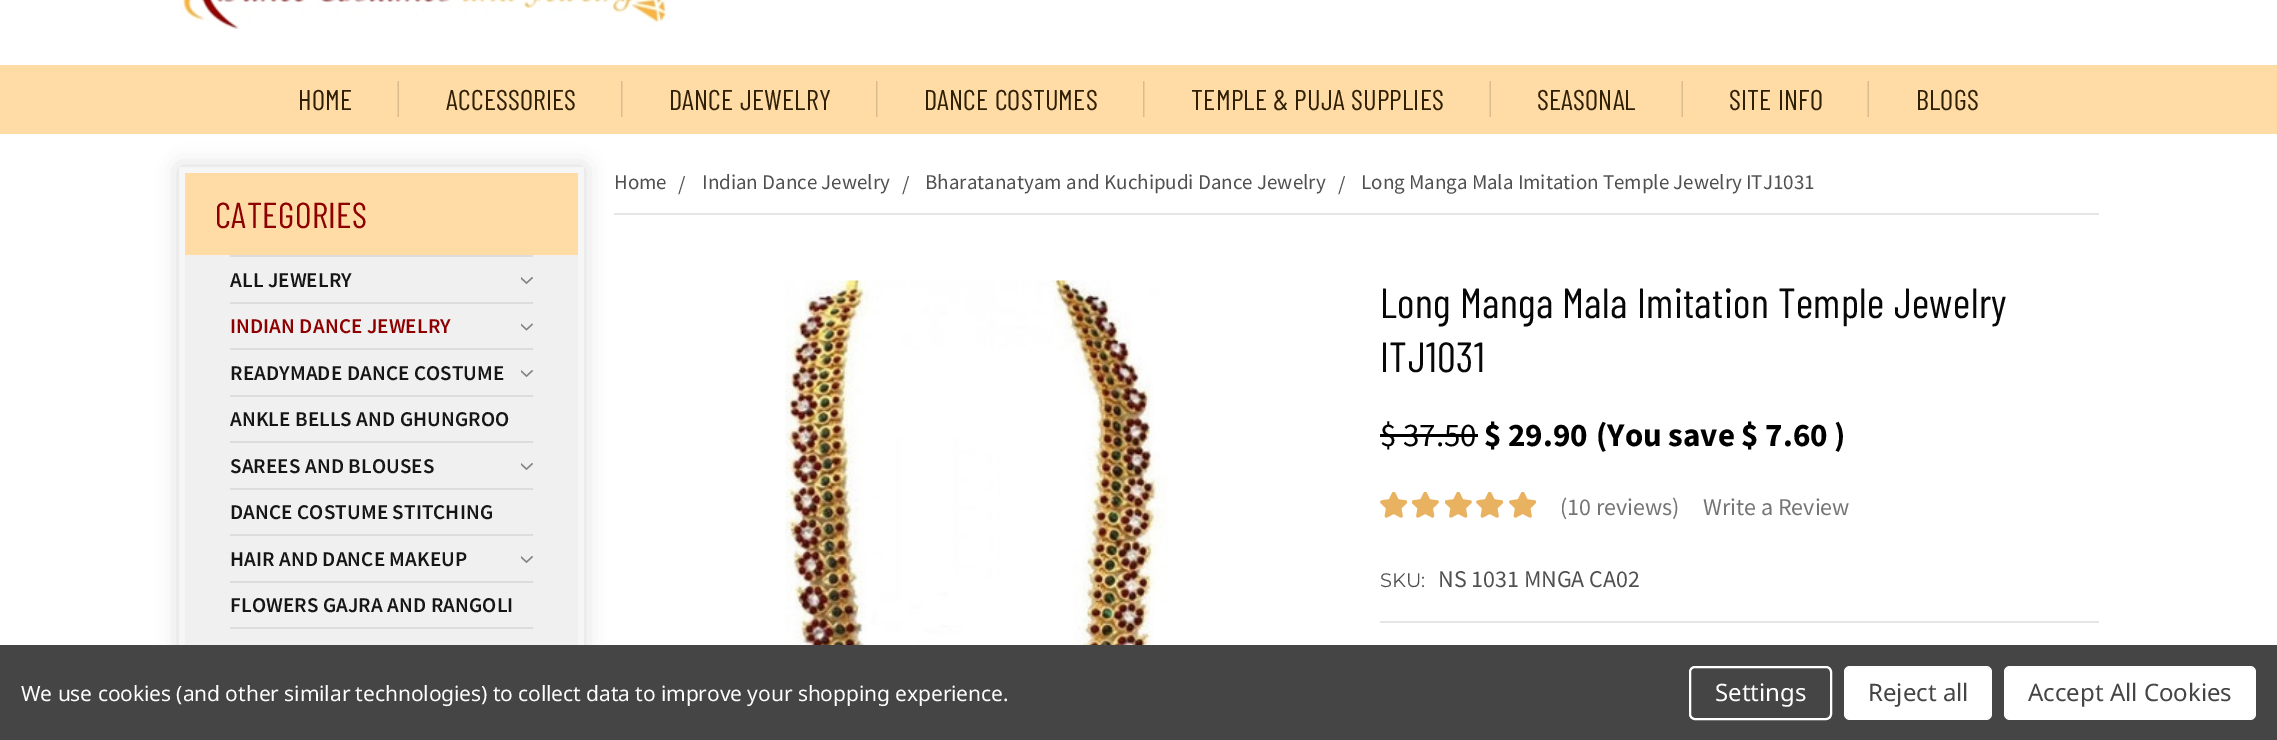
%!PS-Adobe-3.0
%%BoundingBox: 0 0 2277 740
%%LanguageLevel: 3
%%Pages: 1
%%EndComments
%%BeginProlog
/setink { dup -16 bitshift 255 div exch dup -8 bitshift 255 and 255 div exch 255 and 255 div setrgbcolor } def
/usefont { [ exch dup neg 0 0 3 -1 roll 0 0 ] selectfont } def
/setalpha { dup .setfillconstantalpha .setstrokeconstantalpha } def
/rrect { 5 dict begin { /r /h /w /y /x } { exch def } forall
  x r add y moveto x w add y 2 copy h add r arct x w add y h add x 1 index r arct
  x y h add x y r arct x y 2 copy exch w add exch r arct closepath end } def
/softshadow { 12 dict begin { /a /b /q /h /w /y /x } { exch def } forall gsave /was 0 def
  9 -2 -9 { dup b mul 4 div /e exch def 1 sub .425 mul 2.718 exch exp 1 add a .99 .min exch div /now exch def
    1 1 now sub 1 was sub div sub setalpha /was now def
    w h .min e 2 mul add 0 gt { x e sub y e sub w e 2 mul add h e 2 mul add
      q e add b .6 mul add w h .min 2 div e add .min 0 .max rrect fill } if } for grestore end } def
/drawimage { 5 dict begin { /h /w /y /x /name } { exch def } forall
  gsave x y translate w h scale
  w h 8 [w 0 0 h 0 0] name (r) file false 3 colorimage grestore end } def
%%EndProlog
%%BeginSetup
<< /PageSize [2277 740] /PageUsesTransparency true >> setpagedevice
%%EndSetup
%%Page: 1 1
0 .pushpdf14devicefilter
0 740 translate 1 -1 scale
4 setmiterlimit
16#FFFFFF setink
0 0 2277 740 rectfill
(img1.raw) 182 0 485 29 drawimage
16#E5E5E5 setink
614 213 1485 2 rectfill
16#000000 setink
179 167 405 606 0 11 0.15 softshadow
16#FFDCA6 setink
0 65 2277 69 rectfill
(img2.raw) 397 81 2 36 drawimage
/BarlowCondensed-Regular 28.5 usefont
16#2F1F04 setink
298 110 moveto 0.15 0 (HOME) ashow
(img3.raw) 621 81 2 36 drawimage
446 110 moveto 0.15 0 (ACCESSORIES) ashow
(img3.raw) 876 81 2 36 drawimage
669 110 moveto 0.15 0 (DANCE JEWELRY) ashow
(img3.raw) 1143 81 2 36 drawimage
924 110 moveto 0.15 0 (DANCE COSTUMES) ashow
(img2.raw) 1489 81 2 36 drawimage
1191 110 moveto 0.15 0 (TEMPLE & PUJA SUPPLIES) ashow
(img2.raw) 1681 81 2 36 drawimage
1537 110 moveto 0.15 0 (SEASONAL) ashow
(img2.raw) 1867 81 2 36 drawimage
1729 110 moveto 0.15 0 (SITE INFO) ashow
1916 110 moveto 0.15 0 (BLOGS) ashow
16#F6F6F6 setink
179 167 405 478 rectfill
16#FFDCA6 setink
185 173 393 82 rectfill
/BarlowCondensed-Regular 36 usefont
16#8E0000 setink
215 228 moveto 0.4 0 (CATEGORIES) ashow
16#F0F0F0 setink
185 255 393 390 rectfill
16#DCDCDC setink
230 255 303 2 rectfill
/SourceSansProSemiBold-SemiBold 21 usefont
16#161616 setink
230 287 moveto 0.15 0 (ALL JEWELRY) ashow
(img4.raw) 521 277 12 8 drawimage
16#DCDCDC setink
230 302 303 2 rectfill
16#8E0000 setink
230 333 moveto 0.15 0 (INDIAN DANCE JEWELRY) ashow
(img5.raw) 521 323 12 8 drawimage
16#DCDCDC setink
230 348 303 2 rectfill
16#161616 setink
230 380 moveto 0.15 0 (READYMADE DANCE COSTUME) ashow
(img4.raw) 521 370 12 8 drawimage
16#DCDCDC setink
230 395 303 2 rectfill
16#161616 setink
230 426 moveto 0.15 0 (ANKLE BELLS AND GHUNGROO) ashow
16#DCDCDC setink
230 441 303 2 rectfill
16#161616 setink
230 473 moveto 0.15 0 (SAREES AND BLOUSES) ashow
(img4.raw) 521 463 12 8 drawimage
16#DCDCDC setink
230 488 303 2 rectfill
16#161616 setink
230 519 moveto 0.15 0 (DANCE COSTUME STITCHING) ashow
16#DCDCDC setink
230 534 303 2 rectfill
16#161616 setink
230 566 moveto 0.15 0 (HAIR AND DANCE MAKEUP) ashow
(img4.raw) 521 556 12 8 drawimage
16#DCDCDC setink
230 581 303 2 rectfill
16#161616 setink
230 612 moveto 0.15 0 (FLOWERS GAJRA AND RANGOLI) ashow
16#DCDCDC setink
230 627 303 2 rectfill
/SourceSansPro-Regular 21 usefont
16#505050 setink
[
    [(Home) 614 189]
    [(/) 678 191]
    [(Indian Dance Jewelry) 702 189]
    [(/) 902 191]
    [(Bharatanatyam and Kuchipudi Dance Jewelry) 925 189]
    [(/) 1338 191]
    [(Long Manga Mala Imitation Temple Jewelry ITJ1031) 1361 189]
] { aload pop moveto show } forall
(img6.raw) 785 280 384 365 drawimage
16#E5E5E5 setink
1380 621 719 2 rectfill
/BarlowCondensed-Regular 42 usefont
16#090808 setink
1380 318 moveto 0.4 0 (Long Manga Mala Imitation Temple Jewelry) ashow
1380 372 moveto 0.4 0 (ITJ1031) ashow
/SourceSansPro-Regular 33 usefont
16#000000 setink
1380 446 moveto ($ 37.50) show
1380 434 98 3 rectfill
/SourceSansPro-Bold 33 usefont
1484 446 moveto ($ 29.90) show
1596 446 moveto (\(You save $ 7.60 \)) show
(img7.raw) 1380 492 27 26 drawimage
(img8.raw) 1412 492 27 26 drawimage
(img8.raw) 1445 492 27 26 drawimage
(img7.raw) 1476 492 27 26 drawimage
(img7.raw) 1509 492 27 26 drawimage
/SourceSansPro-Regular 24 usefont
16#757575 setink
1560 515 moveto (\(10 reviews\)) show
1703 515 moveto (Write a Review) show
/Montserrat-Thin 19.5 usefont
16#505050 setink
1380 587 moveto (SKU:) show
/SourceSansPro-Regular 24 usefont
1438 587 moveto (NS 1031 MNGA CA02) show
16#454545 setink
0 645 2277 95 rectfill
/NotoSans-Regular 21 usefont
16#FFFFFF setink
21 701 moveto -0.08 0 (We use cookies \(and other similar technologies\) to collect data to improve your shopping experience.) ashow
2 setlinewidth
1690 667 141 52 5 rrect stroke
/NotoSans-Regular 24 usefont
1715 701 moveto (Settings) show
1844 666 148 54 6 rrect fill
16#454545 setink
1868 701 moveto (Reject all) show
16#FFFFFF setink
2004 666 252 54 6 rrect fill
16#454545 setink
2028 701 moveto (Accept All Cookies) show
.poppdf14devicefilter showpage
%%EOF
